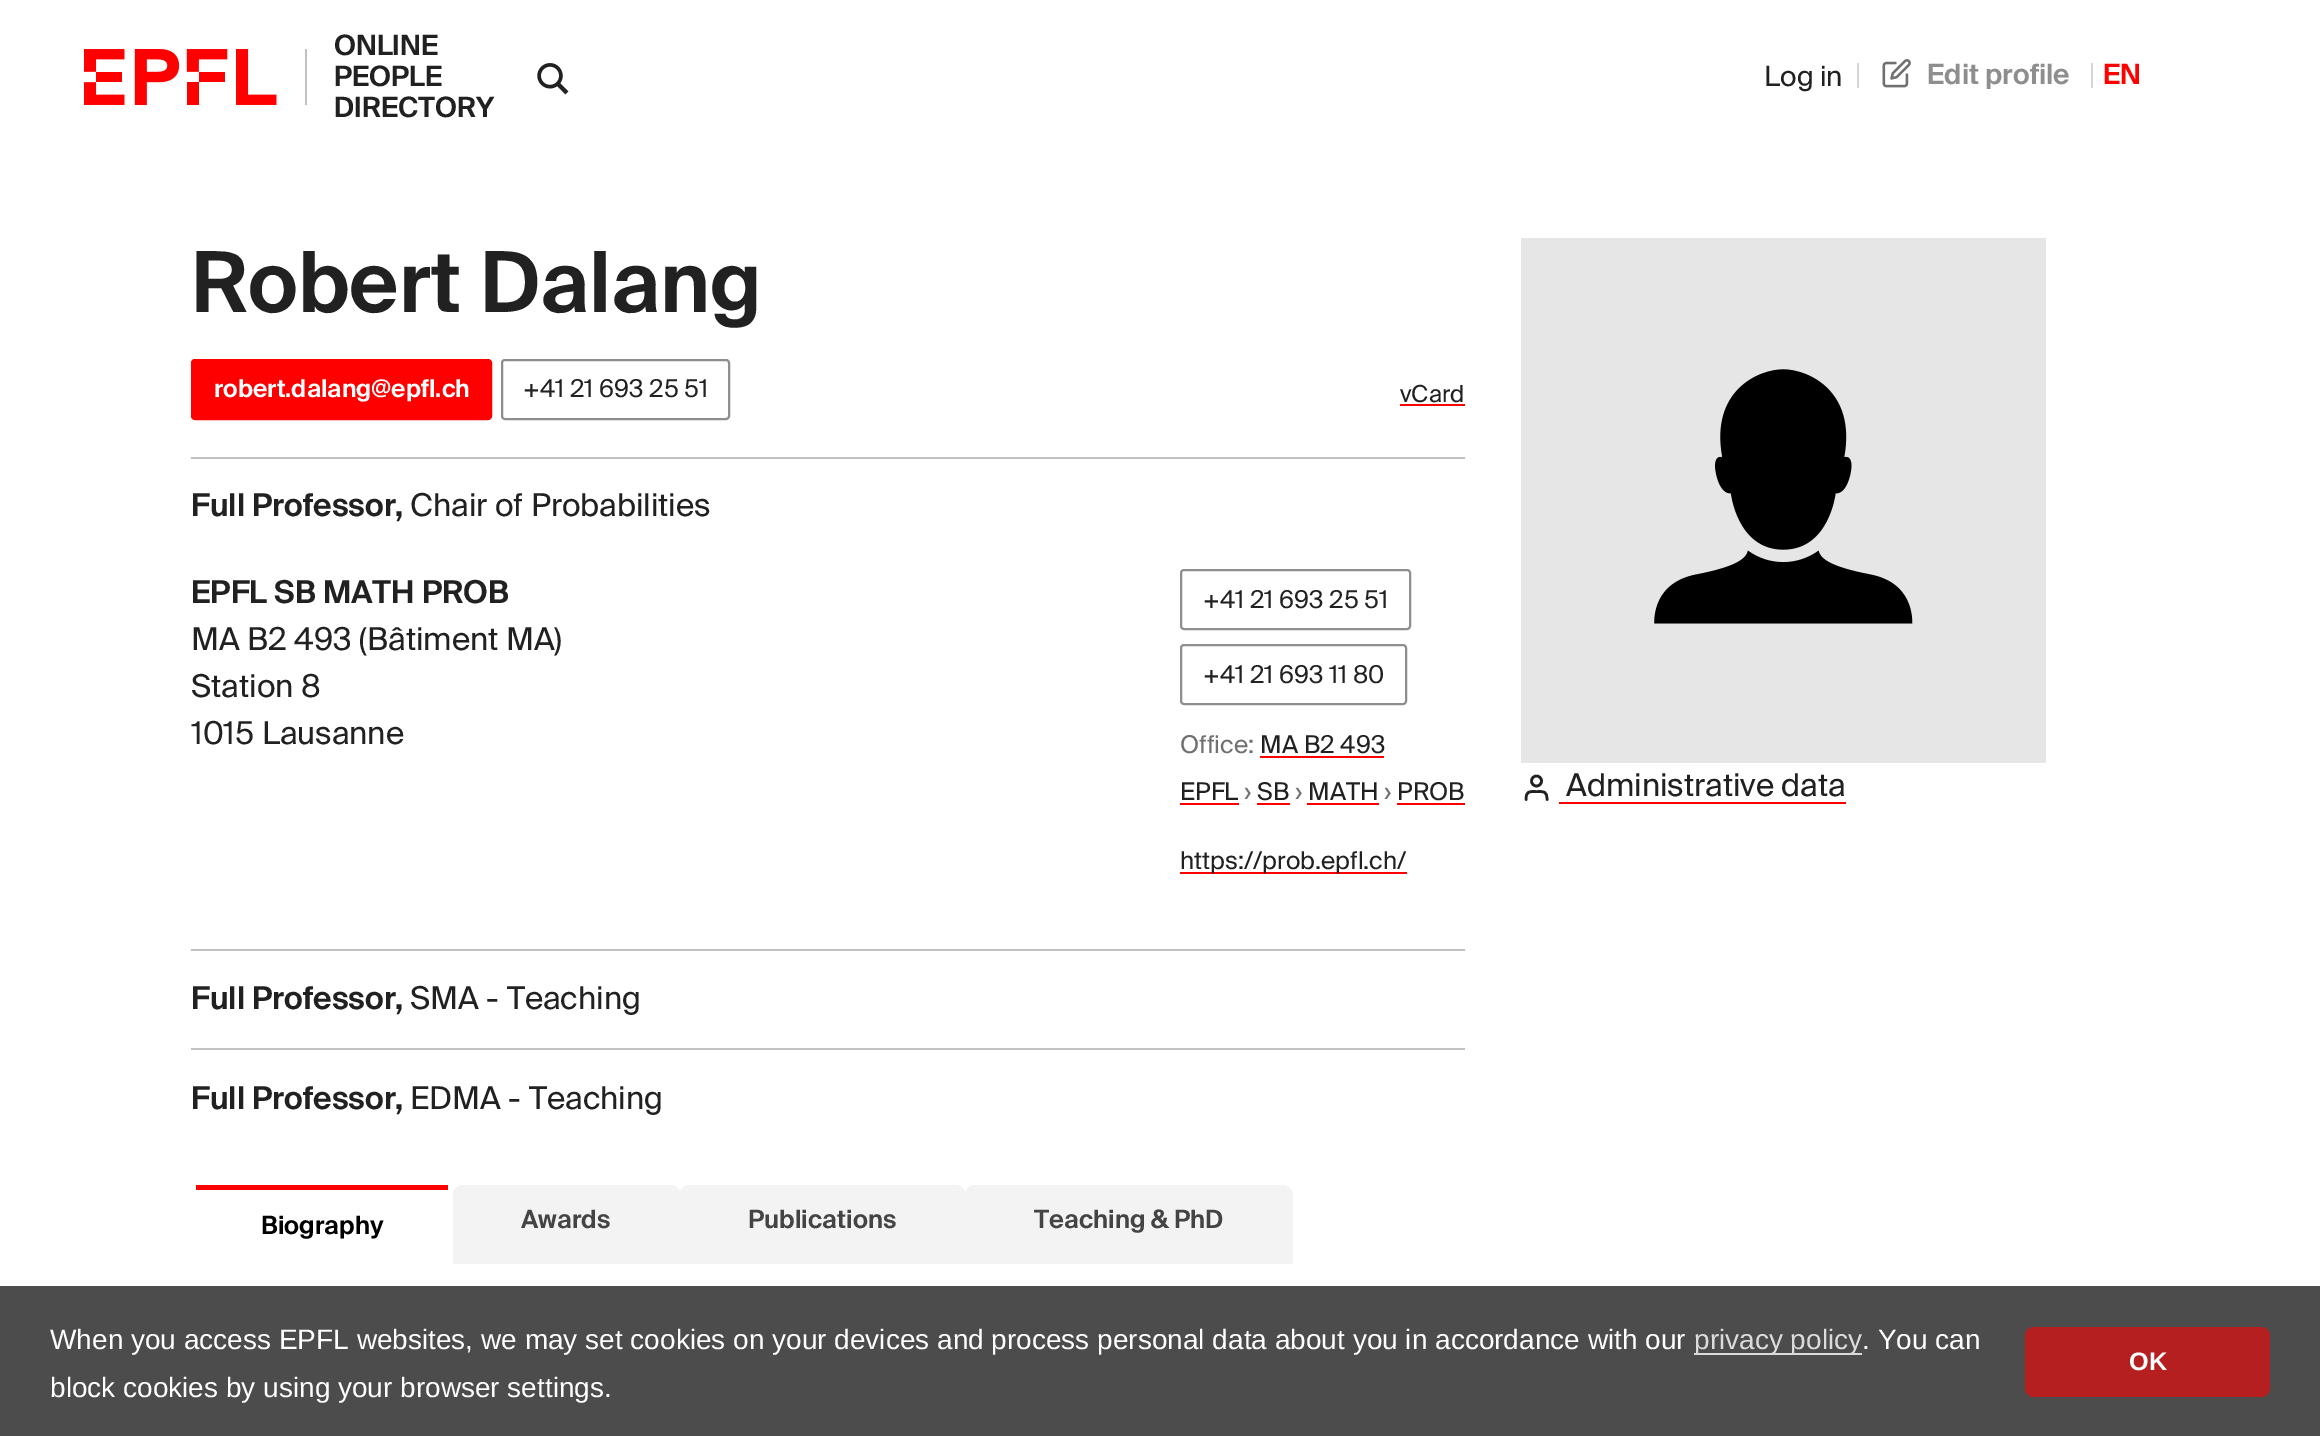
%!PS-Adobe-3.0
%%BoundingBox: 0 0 2320 1436
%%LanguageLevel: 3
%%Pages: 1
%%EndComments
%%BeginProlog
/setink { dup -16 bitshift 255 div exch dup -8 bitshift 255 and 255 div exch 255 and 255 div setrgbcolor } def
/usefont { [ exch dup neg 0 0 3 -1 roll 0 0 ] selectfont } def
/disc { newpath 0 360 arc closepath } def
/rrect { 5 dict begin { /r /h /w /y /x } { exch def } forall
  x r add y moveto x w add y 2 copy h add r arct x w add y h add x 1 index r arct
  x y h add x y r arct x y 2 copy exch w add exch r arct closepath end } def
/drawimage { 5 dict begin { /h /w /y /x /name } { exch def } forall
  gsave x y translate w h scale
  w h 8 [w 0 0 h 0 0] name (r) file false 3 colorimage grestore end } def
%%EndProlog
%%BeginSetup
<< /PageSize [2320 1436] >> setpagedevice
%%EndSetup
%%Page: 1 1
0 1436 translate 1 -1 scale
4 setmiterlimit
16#FFFFFF setink
0 0 2320 1436 rectfill
16#4C4C4C setink
0 1286 2320 150 rectfill
16#C1C1C1 setink
305 49 2 56 rectfill
(img1.raw) 84 49 193 56 drawimage
/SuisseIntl-SemiBold 28 usefont
16#212121 setink
[
    [(ONLINE) 334 55]
    [(PEOPLE) 334 86]
    [(DIRECTORY) 334 117]
] { aload pop moveto show } forall
(img2.raw) 537 63 32 32 drawimage
/SuisseIntl-Regular 28 usefont
1764 86 moveto (Log in) show
16#D5D5D5 setink
1857 63 2 25 rectfill
(img3.raw) 1882 59 29 29 drawimage
/SuisseIntl-SemiBold 28 usefont
16#8E8E8E setink
1927 84 moveto (Edit profile) show
16#D5D5D5 setink
2091 63 2 25 rectfill
16#FF0000 setink
2103 84 moveto (EN) show
/SuisseIntl-SemiBold 84 usefont
16#212121 setink
191 312 moveto (Robert Dalang) show
16#FF0000 setink
192 360 299 59 3 rrect gsave fill grestore
2 setlinewidth
stroke
/SuisseIntl-SemiBold 24.5 usefont
16#FFFFFF setink
214 397 moveto (robert.dalang@epfl.ch) show
16#8E8E8E setink
502 360 227 59 3 rrect stroke
/SuisseIntl-Regular 24.5 usefont
16#212121 setink
523 397 moveto (+41 21 693 25 51) show
/SuisseIntl-Regular 23.5 usefont
1400 402 moveto (vCard) show
16#FF0000 setink
1400 404 65 2 rectfill
16#C1C1C1 setink
191 457 1274 2 rectfill
/SuisseIntl-SemiBold 31.5 usefont
16#212121 setink
191 516 moveto (Full Professor,) show
/SuisseIntl-Regular 31.5 usefont
410 516 moveto (Chair of Probabilities) show
/SuisseIntl-SemiBold 31.5 usefont
191 603 moveto (EPFL SB MATH PROB) show
/SuisseIntl-Regular 31.5 usefont
[
    [(MA B2 493 \(Bâtiment MA\)) 191 650]
    [(Station 8) 191 697]
    [(1015 Lausanne) 191 744]
] { aload pop moveto show } forall
16#8E8E8E setink
1181 570 229 59 3 rrect stroke
/SuisseIntl-Regular 24.5 usefont
16#212121 setink
1203 608 moveto (+41 21 693 25 51) show
16#8E8E8E setink
1181 645 225 59 3 rrect stroke
16#212121 setink
1203 683 moveto (+41 21 693 11 80) show
16#707070 setink
1180 753 moveto (Office:) show
16#212121 setink
1260 753 moveto (MA B2 493) show
16#FF0000 setink
1260 756 124 2 rectfill
16#212121 setink
1180 800 moveto (EPFL) show
16#FF0000 setink
1180 803 59 2 rectfill
16#707070 setink
1244 800 moveto (›) show
16#212121 setink
1257 800 moveto (SB) show
16#FF0000 setink
1257 803 33 2 rectfill
16#707070 setink
1295 800 moveto (›) show
16#212121 setink
1308 800 moveto (MATH) show
16#FF0000 setink
1307 803 72 2 rectfill
16#707070 setink
1384 800 moveto (›) show
16#212121 setink
1397 800 moveto (PROB) show
16#FF0000 setink
1397 803 68 2 rectfill
1180 872 227 2 rectfill
16#212121 setink
1180 869 moveto (https://prob.epfl.ch/) show
16#C1C1C1 setink
191 949 1274 2 rectfill
/SuisseIntl-SemiBold 31.5 usefont
16#212121 setink
191 1009 moveto (Full Professor,) show
/SuisseIntl-Regular 31.5 usefont
410 1009 moveto (SMA - Teaching) show
16#C1C1C1 setink
191 1048 1274 2 rectfill
/SuisseIntl-SemiBold 31.5 usefont
16#212121 setink
191 1109 moveto (Full Professor,) show
/SuisseIntl-Regular 31.5 usefont
410 1109 moveto (EDMA - Teaching) show
16#E6E6E6 setink
1521 238 525 525 rectfill
(img4.raw) 1654 369 259 255 drawimage
16#212121 setink
2.6 setlinewidth
1 setlinecap
1 setlinejoin
1547 799.5 moveto 1547 791 1544 791.5 1536.5 791.5 curveto 1529 791.5 1526 791 1526 799.5 curveto stroke
0 setlinecap
0 setlinejoin
1536.5 781 5 disc stroke
1566 796 moveto (Administrative data) show
16#FF0000 setink
1559 802 287 2 rectfill
16#F3F3F3 setink
463 1185 moveto 670 1185 lineto 676 1185 681 1190 681 1196 curveto 681 1264 lineto 452 1264 lineto 452 1196 lineto 452 1190 457 1185 463 1185 curveto closepath fill
16#FFFFFF setink
202 1185 moveto 442 1185 lineto 448 1185 453 1190 453 1196 curveto 453 1264 lineto 191 1264 lineto 191 1196 lineto 191 1190 196 1185 202 1185 curveto closepath fill
16#FF0000 setink
196 1185 252 5 rectfill
/SuisseIntl-SemiBold 25.25 usefont
16#000000 setink
261 1234 moveto (Biography) show
16#444444 setink
521 1228 moveto (Awards) show
16#F3F3F3 setink
690 1185 moveto 955 1185 lineto 961 1185 966 1190 966 1196 curveto 966 1264 lineto 679 1264 lineto 679 1196 lineto 679 1190 684 1185 690 1185 curveto closepath fill
16#444444 setink
748 1228 moveto (Publications) show
16#F3F3F3 setink
975 1185 moveto 1282 1185 lineto 1288 1185 1293 1190 1293 1196 curveto 1293 1264 lineto 964 1264 lineto 964 1196 lineto 964 1190 969 1185 975 1185 curveto closepath fill
16#444444 setink
1034 1228 moveto (Teaching & PhD) show
/LiberationSans-Regular 28 usefont
16#FFFFFF setink
50 1349 moveto (When you access EPFL websites, we may set cookies on your devices and process personal data about you in accordance with our) show
16#DBDBDB setink
1694 1353 168 2 rectfill
1694 1349 moveto (privacy policy) show
16#FFFFFF setink
1862 1349 moveto (. You can) show
50 1397 moveto (block cookies by using your browser settings.) show
16#B51F1F setink
2025 1327 245 70 9 rrect fill
/LiberationSans-Bold 25.25 usefont
16#FFFFFF setink
2129 1370 moveto (OK) show
showpage
%%EOF
